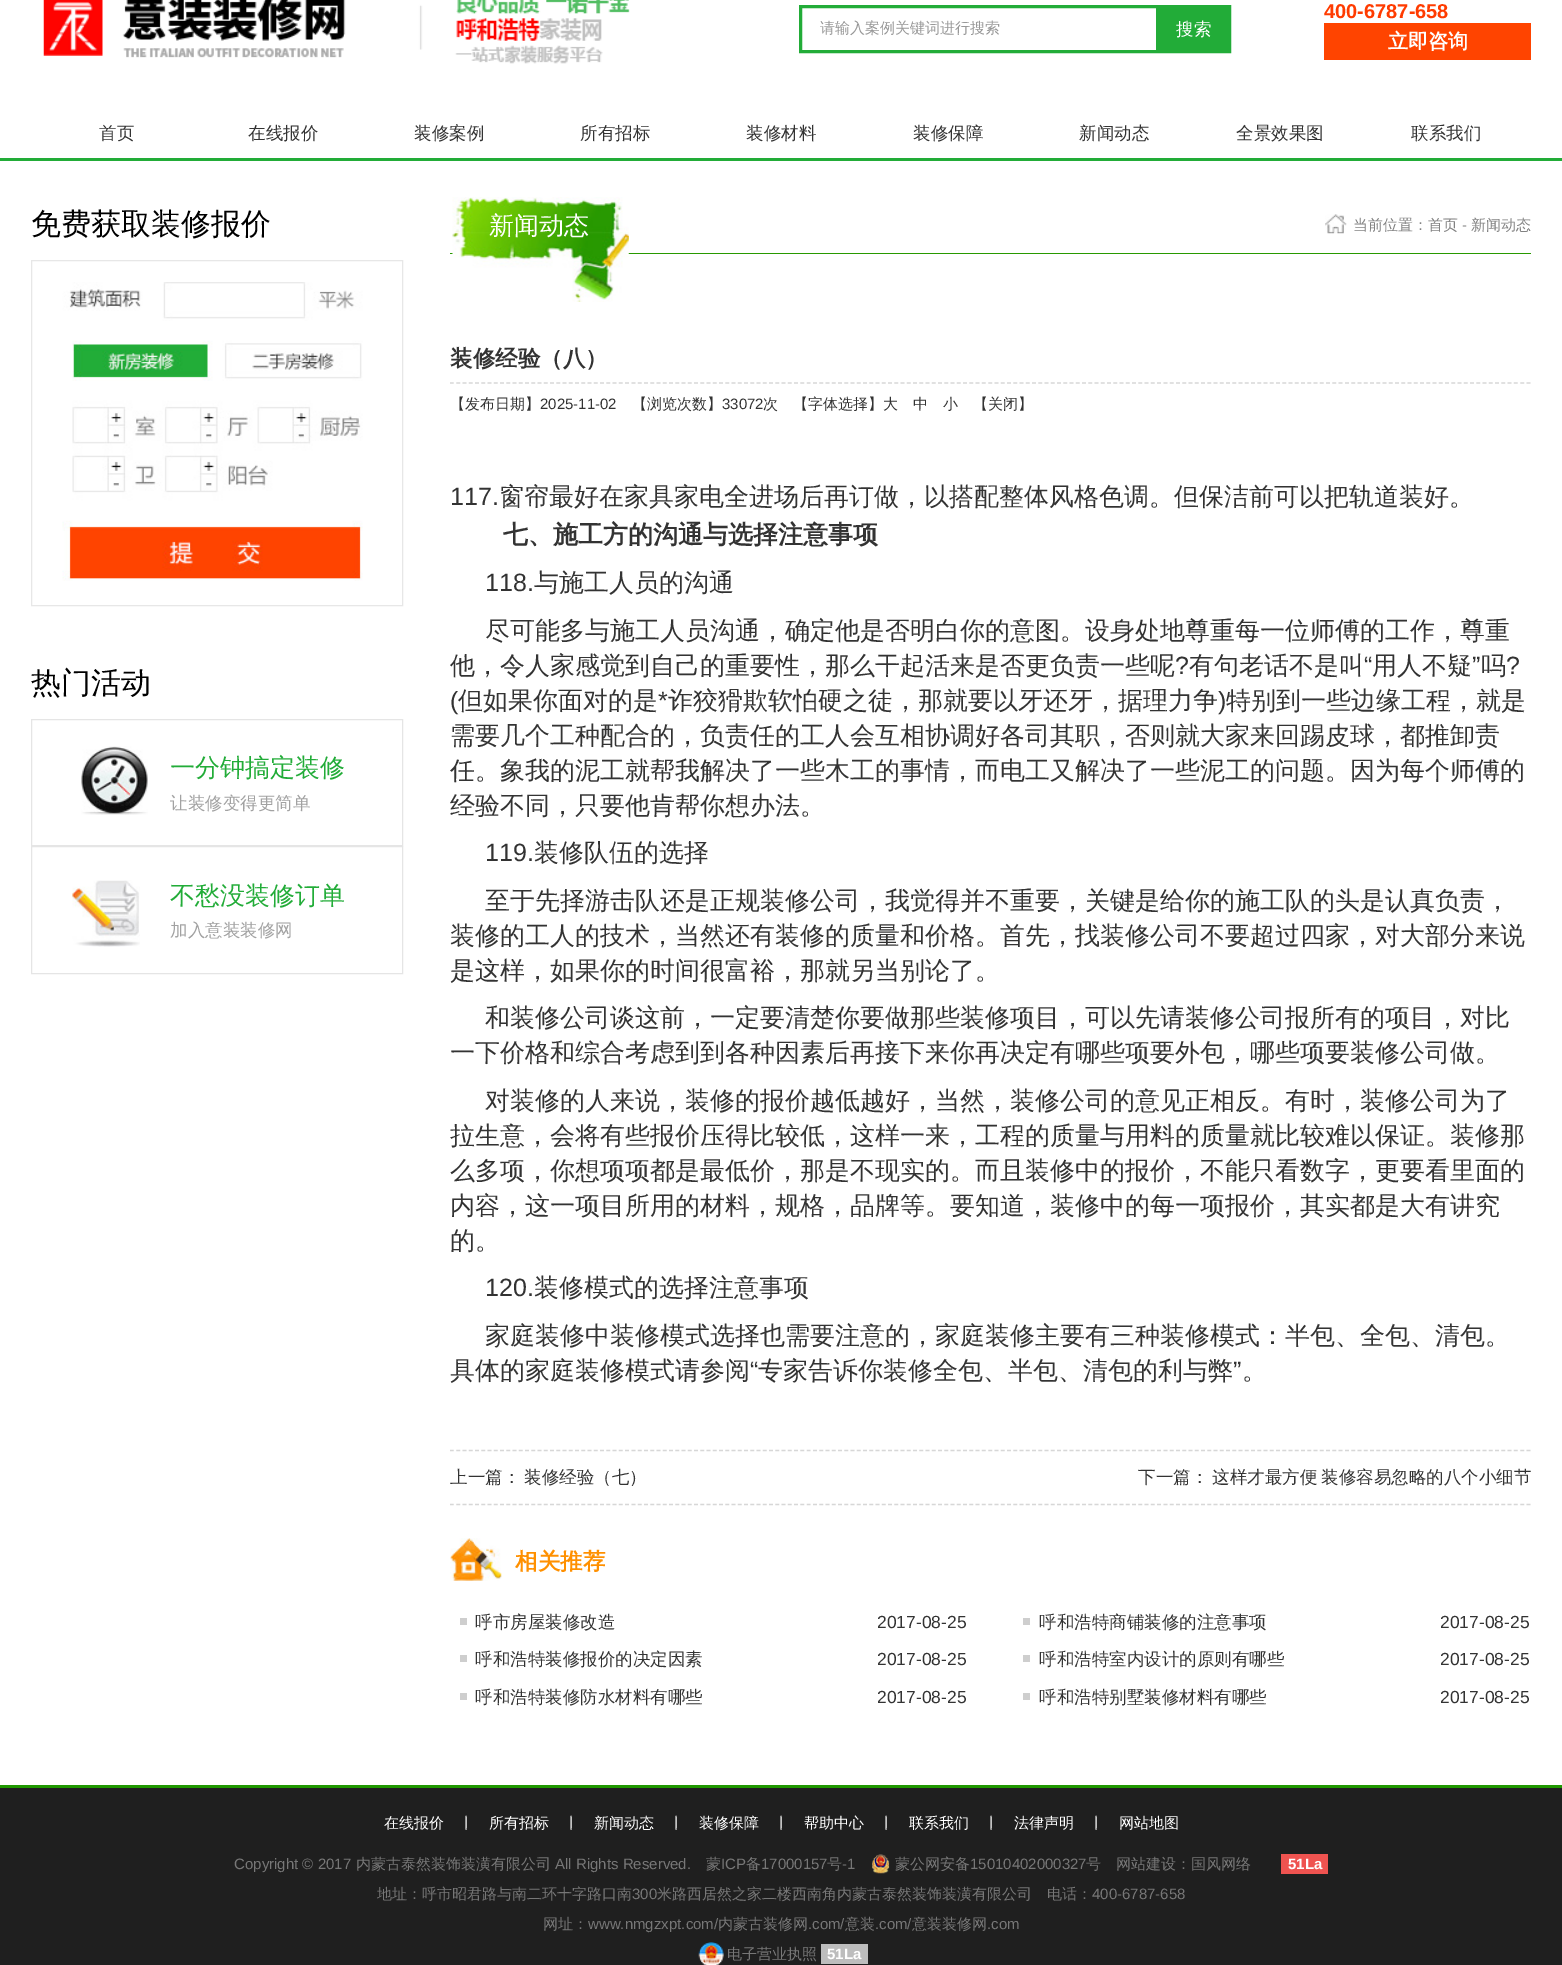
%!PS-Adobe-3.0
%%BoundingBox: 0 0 1562 1965
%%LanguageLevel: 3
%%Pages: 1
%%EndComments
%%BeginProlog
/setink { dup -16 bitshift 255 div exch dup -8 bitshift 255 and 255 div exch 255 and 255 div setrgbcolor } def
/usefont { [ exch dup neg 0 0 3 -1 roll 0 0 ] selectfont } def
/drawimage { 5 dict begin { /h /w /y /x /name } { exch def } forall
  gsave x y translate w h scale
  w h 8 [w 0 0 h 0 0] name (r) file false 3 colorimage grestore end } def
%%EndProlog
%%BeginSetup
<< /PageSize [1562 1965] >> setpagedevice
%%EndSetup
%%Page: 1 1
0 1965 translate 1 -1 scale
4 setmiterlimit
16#FFFFFF setink
0 0 1562 1965 rectfill
(img1.raw) 43 0 587 64 drawimage
16#22AC38 setink
3 setlinewidth
800.5 6.5 429 45 rectstroke
/WenQuanYiZenHei-Medium 15 usefont
16#989898 setink
820 33 moveto (请输入案例关键词进行搜索) show
16#22AC38 setink
1156 8 72 42 rectfill
/WenQuanYiZenHei-Medium 17.5 usefont
16#FFFFFF setink
1176 35 moveto (搜索) show
/LiberationSans-Bold 20 usefont
16#FF3B00 setink
1324 18 moveto (400-6787-658) show
16#FF4400 setink
1324 23 207 37 rectfill
/WenQuanYiZenHei-Bold 20 usefont
16#FFFFFF setink
1388 48 moveto (立即咨询) show
16#22AC38 setink
0 158 1562 3 rectfill
/WenQuanYiZenHei-Medium 17.5 usefont
16#333333 setink
[
    [(首页) 99 139]
    [(在线报价) 248 139]
    [(装修案例) 414 139]
    [(所有招标) 580 139]
    [(装修材料) 746 139]
    [(装修保障) 913 139]
    [(新闻动态) 1079 139]
    [(全景效果图) 1236 139]
    [(联系我们) 1411 139]
] { aload pop moveto show } forall
/WenQuanYiZenHei-Medium 30 usefont
16#000000 setink
31 234 moveto (免费获取装修报价) show
16#E7E7E7 setink
1 setlinewidth
31.5 260.5 371 345 rectstroke
(img2.raw) 62 282 301 299 drawimage
16#000000 setink
31 693 moveto (热门活动) show
(img3.raw) 81 746 67 69 drawimage
16#E5E5E5 setink
31.5 719.5 371 126 rectstroke
/WenQuanYiZenHei-Medium 25 usefont
16#22AC38 setink
170 776 moveto (一分钟搞定装修) show
/WenQuanYiZenHei-Medium 17.5 usefont
16#A2A2A2 setink
170 809 moveto (让装修变得更简单) show
(img4.raw) 72 880 68 67 drawimage
16#E5E5E5 setink
31.5 846.5 371 127 rectstroke
/WenQuanYiZenHei-Medium 25 usefont
16#22AC38 setink
170 904 moveto (不愁没装修订单) show
/WenQuanYiZenHei-Medium 17.5 usefont
16#A2A2A2 setink
170 936 moveto (加入意装装修网) show
16#289900 setink
450 253 1081 1 rectfill
(img5.raw) 452 197 177 105 drawimage
/WenQuanYiZenHei-Medium 25 usefont
16#FFFFFF setink
489 234 moveto (新闻动态) show
(img6.raw) 1325 214 22 20 drawimage
/WenQuanYiZenHei-Medium 15 usefont
16#828282 setink
1353 230 moveto (当前位置：首页) show
/LiberationSans-Regular 15 usefont
1462 230 moveto (-) show
/WenQuanYiZenHei-Medium 15 usefont
1471 230 moveto (新闻动态) show
/WenQuanYiZenHei-Bold 22.5 usefont
16#333333 setink
450 366 moveto (装修经验（八）) show
16#D7D7D7 setink
1.2 setlinewidth
[3.75 2.51] 0 setdash
450 383 moveto 1531 383 lineto stroke
/WenQuanYiZenHei-Medium 15 usefont
16#333333 setink
450 409 moveto (【发布日期】) show
/LiberationSans-Regular 15 usefont
540 409 moveto (2025-11-02) show
/WenQuanYiZenHei-Medium 15 usefont
632 409 moveto (【浏览次数】) show
/LiberationSans-Regular 15 usefont
722 409 moveto (33072) show
/WenQuanYiZenHei-Medium 15 usefont
[
    [(次　【字体选择】大) 763 409]
    [(中) 913 409]
    [(小) 943 409]
    [(【关闭】) 973 409]
] { aload pop moveto show } forall
/LiberationSans-Regular 25 usefont
450 505 moveto (117.) show
/WenQuanYiZenHei-Medium 25 usefont
499 505 moveto (窗帘最好在家具家电全进场后再订做，以搭配整体风格色调。但保洁前可以把轨道装好。) show
/WenQuanYiZenHei-Bold 25 usefont
503 543 moveto (七、施工方的沟通与选择注意事项) show
/LiberationSans-Regular 25 usefont
485 591 moveto (118.) show
/WenQuanYiZenHei-Medium 25 usefont
[
    [(与施工人员的沟通) 534 591]
    [(尽可能多与施工人员沟通，确定他是否明白你的意图。设身处地尊重每一位师傅的工作，尊重) 485 639]
    [(他，令人家感觉到自己的重要性，那么干起活来是否更负责一些呢) 450 674]
] { aload pop moveto show } forall
/LiberationSans-Regular 25 usefont
1175 674 moveto (?) show
/WenQuanYiZenHei-Medium 25 usefont
1189 674 moveto (有句老话不是叫) show
/LiberationSans-Regular 25 usefont
1364 674 moveto (“) show
/WenQuanYiZenHei-Medium 25 usefont
1372 674 moveto (用人不疑) show
/LiberationSans-Regular 25 usefont
1472 674 moveto (”) show
/WenQuanYiZenHei-Medium 25 usefont
1481 674 moveto (吗) show
/LiberationSans-Regular 25 usefont
1506 674 moveto (?) show
450 709 moveto (\() show
/WenQuanYiZenHei-Medium 25 usefont
458 709 moveto (但如果你面对的是) show
/LiberationSans-Regular 25 usefont
658 709 moveto (*) show
/WenQuanYiZenHei-Medium 25 usefont
668 709 moveto (诈狡猾欺软怕硬之徒，那就要以牙还牙，据理力争) show
/LiberationSans-Regular 25 usefont
1218 709 moveto (\)) show
/WenQuanYiZenHei-Medium 25 usefont
[
    [(特别到一些边缘工程，就是) 1226 709]
    [(需要几个工种配合的，负责任的工人会互相协调好各司其职，否则就大家来回踢皮球，都推卸责) 450 744]
    [(任。象我的泥工就帮我解决了一些木工的事情，而电工又解决了一些泥工的问题。因为每个师傅的) 450 779]
    [(经验不同，只要他肯帮你想办法。) 450 814]
] { aload pop moveto show } forall
/LiberationSans-Regular 25 usefont
485 861 moveto (119.) show
/WenQuanYiZenHei-Medium 25 usefont
[
    [(装修队伍的选择) 534 861]
    [(至于先择游击队还是正规装修公司，我觉得并不重要，关键是给你的施工队的头是认真负责，) 485 909]
    [(装修的工人的技术，当然还有装修的质量和价格。首先，找装修公司不要超过四家，对大部分来说) 450 944]
    [(是这样，如果你的时间很富裕，那就另当别论了。) 450 979]
    [(和装修公司谈这前，一定要清楚你要做那些装修项目，可以先请装修公司报所有的项目，对比) 485 1026]
    [(一下价格和综合考虑到到各种因素后再接下来你再决定有哪些项要外包，哪些项要装修公司做。) 450 1061]
    [(对装修的人来说，装修的报价越低越好，当然，装修公司的意见正相反。有时，装修公司为了) 485 1109]
    [(拉生意，会将有些报价压得比较低，这样一来，工程的质量与用料的质量就比较难以保证。装修那) 450 1144]
    [(么多项，你想项项都是最低价，那是不现实的。而且装修中的报价，不能只看数字，更要看里面的) 450 1179]
    [(内容，这一项目所用的材料，规格，品牌等。要知道，装修中的每一项报价，其实都是大有讲究) 450 1214]
    [(的。) 450 1249]
] { aload pop moveto show } forall
/LiberationSans-Regular 25 usefont
485 1296 moveto (120.) show
/WenQuanYiZenHei-Medium 25 usefont
[
    [(装修模式的选择注意事项) 534 1296]
    [(家庭装修中装修模式选择也需要注意的，家庭装修主要有三种装修模式：半包、全包、清包。) 485 1344]
    [(具体的家庭装修模式请参阅) 450 1379]
] { aload pop moveto show } forall
/LiberationSans-Regular 25 usefont
750 1379 moveto (“) show
/WenQuanYiZenHei-Medium 25 usefont
758 1379 moveto (专家告诉你装修全包、半包、清包的利与弊) show
/LiberationSans-Regular 25 usefont
1233 1379 moveto (”) show
/WenQuanYiZenHei-Medium 25 usefont
1242 1379 moveto (。) show
16#D7D7D7 setink
450 1450.5 moveto 1531 1450.5 lineto stroke
450 1504.5 moveto 1531 1504.5 lineto stroke
/WenQuanYiZenHei-Medium 17.5 usefont
16#333333 setink
[
    [(上一篇：) 450 1483]
    [(装修经验（七）) 524 1483]
    [(下一篇：) 1138 1483]
] { aload pop moveto show } forall
1212 1483 moveto -1 0 32 (这样才最方便 装修容易忽略的八个小细节) widthshow
(img7.raw) 450 1538 52 43 drawimage
/WenQuanYiZenHei-Bold 22.5 usefont
16#FF9000 setink
515 1569 moveto (相关推荐) show
16#CECECE setink
460 1618 7 7 rectfill
/WenQuanYiZenHei-Medium 17.5 usefont
16#333333 setink
475 1628 moveto (呼市房屋装修改造) show
/LiberationSans-Regular 17.5 usefont
877 1628 moveto (2017-08-25) show
16#CECECE setink
1023 1618 7 7 rectfill
/WenQuanYiZenHei-Medium 17.5 usefont
16#333333 setink
1039 1628 moveto (呼和浩特商铺装修的注意事项) show
/LiberationSans-Regular 17.5 usefont
1440 1628 moveto (2017-08-25) show
16#CECECE setink
460 1655 7 7 rectfill
/WenQuanYiZenHei-Medium 17.5 usefont
16#333333 setink
475 1665 moveto (呼和浩特装修报价的决定因素) show
/LiberationSans-Regular 17.5 usefont
877 1665 moveto (2017-08-25) show
16#CECECE setink
1023 1655 7 7 rectfill
/WenQuanYiZenHei-Medium 17.5 usefont
16#333333 setink
1039 1665 moveto (呼和浩特室内设计的原则有哪些) show
/LiberationSans-Regular 17.5 usefont
1440 1665 moveto (2017-08-25) show
16#CECECE setink
460 1693 7 7 rectfill
/WenQuanYiZenHei-Medium 17.5 usefont
16#333333 setink
475 1703 moveto (呼和浩特装修防水材料有哪些) show
/LiberationSans-Regular 17.5 usefont
877 1703 moveto (2017-08-25) show
16#CECECE setink
1023 1693 7 7 rectfill
/WenQuanYiZenHei-Medium 17.5 usefont
16#333333 setink
1039 1703 moveto (呼和浩特别墅装修材料有哪些) show
/LiberationSans-Regular 17.5 usefont
1440 1703 moveto (2017-08-25) show
16#1F1F1F setink
0 1788 1562 177 rectfill
16#209800 setink
0 1785 1562 3 rectfill
/WenQuanYiZenHei-Medium 15 usefont
16#FFFFFF setink
[
    [(在线报价) 384 1828]
    [(丨) 459 1828]
    [(所有招标) 489 1828]
    [(丨) 564 1828]
    [(新闻动态) 594 1828]
    [(丨) 669 1828]
    [(装修保障) 699 1828]
    [(丨) 774 1828]
    [(帮助中心) 804 1828]
    [(丨) 879 1828]
    [(联系我们) 909 1828]
    [(丨) 984 1828]
    [(法律声明) 1014 1828]
    [(丨) 1089 1828]
    [(网站地图) 1119 1828]
] { aload pop moveto show } forall
/LiberationSans-Regular 15 usefont
16#777777 setink
234 1869 moveto (Copyright © 2017) show
/WenQuanYiZenHei-Medium 15 usefont
356 1869 moveto (内蒙古泰然装饰装潢有限公司) show
/LiberationSans-Regular 15 usefont
555 1869 moveto (All Rights Reserved.) show
/WenQuanYiZenHei-Medium 15 usefont
706 1869 moveto (蒙) show
/LiberationSans-Regular 15 usefont
721 1869 moveto (ICP) show
/WenQuanYiZenHei-Medium 15 usefont
746 1869 moveto (备) show
/LiberationSans-Regular 15 usefont
761 1869 moveto (17000157) show
/WenQuanYiZenHei-Medium 15 usefont
827 1869 moveto (号) show
/LiberationSans-Regular 15 usefont
842 1869 moveto (-1) show
(img8.raw) 872 1854 18 20 drawimage
/WenQuanYiZenHei-Medium 15 usefont
895 1869 moveto (蒙公网安备) show
/LiberationSans-Regular 15 usefont
970 1869 moveto (15010402000327) show
/WenQuanYiZenHei-Medium 15 usefont
1086 1869 moveto (号) show
1116 1869 moveto (网站建设：国风网络) show
16#EF5350 setink
1281 1854 47 20 rectfill
/LiberationSans-Bold 15 usefont
16#FFFFFF setink
1288 1869 moveto (51La) show
/WenQuanYiZenHei-Medium 15 usefont
16#777777 setink
377 1899 moveto (地址：呼市昭君路与南二环十字路口南) show
/LiberationSans-Regular 15 usefont
632 1899 moveto (300) show
/WenQuanYiZenHei-Medium 15 usefont
657 1899 moveto (米路西居然之家二楼西南角内蒙古泰然装饰装潢有限公司　电话：) show
/LiberationSans-Regular 15 usefont
1092 1899 moveto (400-6787-658) show
/WenQuanYiZenHei-Medium 15 usefont
543 1929 moveto (网址：) show
/LiberationSans-Regular 15 usefont
588 1929 moveto (www.nmgzxpt.com/) show
/WenQuanYiZenHei-Medium 15 usefont
718 1929 moveto (内蒙古装修网) show
/LiberationSans-Regular 15 usefont
808 1929 moveto (.com/) show
/WenQuanYiZenHei-Medium 15 usefont
845 1929 moveto (意装) show
/LiberationSans-Regular 15 usefont
875 1929 moveto (.com/) show
/WenQuanYiZenHei-Medium 15 usefont
912 1929 moveto (意装装修网) show
/LiberationSans-Regular 15 usefont
987 1929 moveto (.com) show
(img9.raw) 698 1942 26 23 drawimage
/WenQuanYiZenHei-Medium 15 usefont
727 1959 moveto (电子营业执照) show
16#BDBDBD setink
821 1944 47 20 rectfill
/LiberationSans-Bold 15 usefont
16#FFFFFF setink
827 1959 moveto (51La) show
showpage
%%EOF
